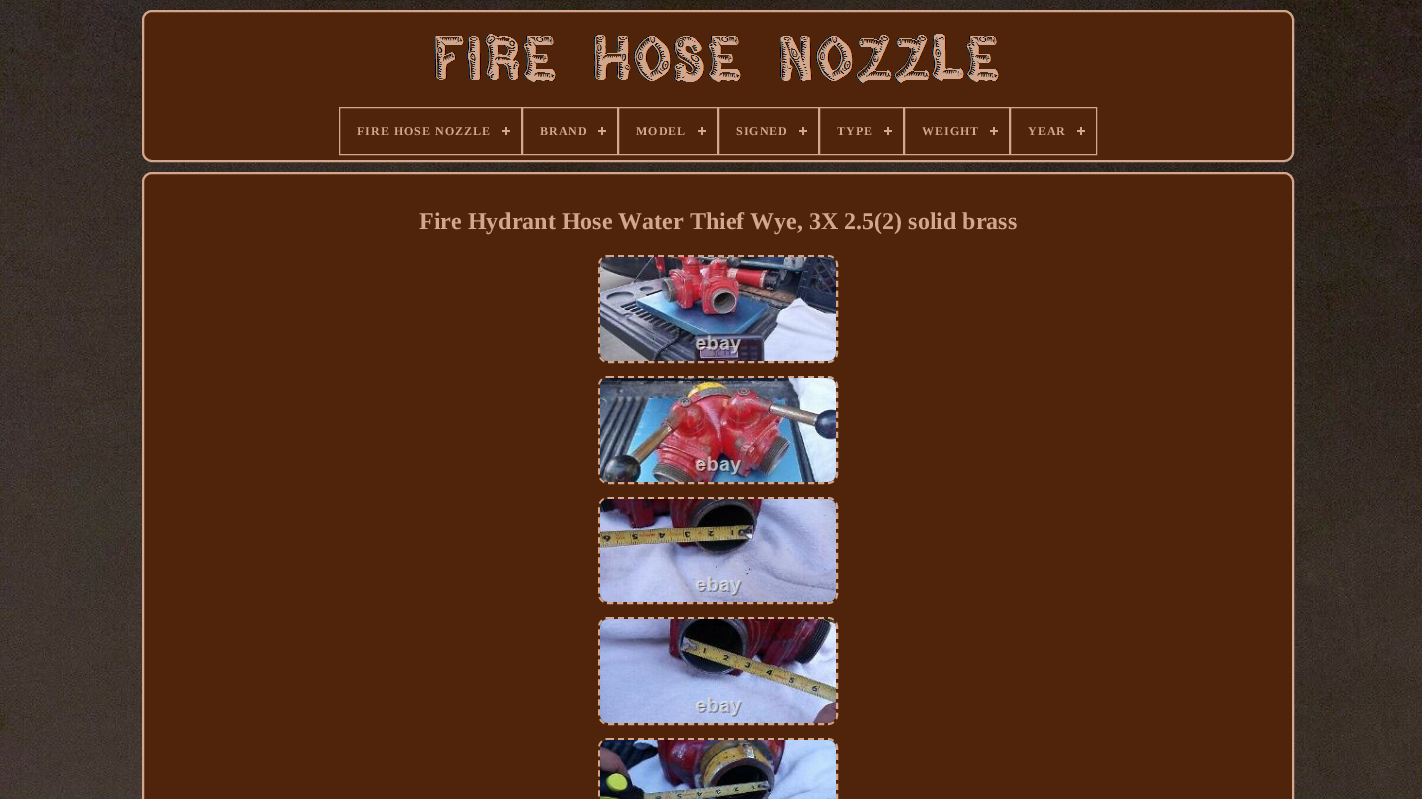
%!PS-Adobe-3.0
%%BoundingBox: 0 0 1422 799
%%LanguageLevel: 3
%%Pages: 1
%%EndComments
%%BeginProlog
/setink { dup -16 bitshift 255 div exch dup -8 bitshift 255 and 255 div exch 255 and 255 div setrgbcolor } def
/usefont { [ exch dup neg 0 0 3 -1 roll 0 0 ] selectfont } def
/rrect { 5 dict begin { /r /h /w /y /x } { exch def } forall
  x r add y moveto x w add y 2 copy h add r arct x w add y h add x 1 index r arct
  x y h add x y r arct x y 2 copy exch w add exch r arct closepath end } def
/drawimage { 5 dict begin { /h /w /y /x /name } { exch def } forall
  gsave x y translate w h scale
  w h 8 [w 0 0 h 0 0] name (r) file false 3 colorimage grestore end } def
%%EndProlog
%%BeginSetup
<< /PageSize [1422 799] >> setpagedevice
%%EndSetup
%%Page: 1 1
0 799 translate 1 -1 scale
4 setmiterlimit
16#FFFFFF setink
0 0 1422 799 rectfill
(img1.raw) 0 0 1422 799 drawimage
16#50240B setink
143 11 1150 150 9 rrect gsave fill grestore
16#D3A78E setink
2 setlinewidth
stroke
(img2.raw) 435 34 564 49 drawimage
1 setlinewidth
339.5 107.5 182 47 rectstroke
/LiberationSerif-Bold 12 usefont
357 135 moveto 1 0 (FIRE HOSE NOZZLE) ashow
505 127 2 8 rectfill
502 130 8 2 rectfill
522.5 107.5 95 47 rectstroke
540 135 moveto 1 0 (BRAND) ashow
601 127 2 8 rectfill
598 130 8 2 rectfill
618.5 107.5 99 47 rectstroke
636 135 moveto 1 0 (MODEL) ashow
701 127 2 8 rectfill
698 130 8 2 rectfill
718.5 107.5 100 47 rectstroke
736 135 moveto 1 0 (SIGNED) ashow
802 127 2 8 rectfill
799 130 8 2 rectfill
819.5 107.5 84 47 rectstroke
837 135 moveto 1 0 (TYPE) ashow
887 127 2 8 rectfill
884 130 8 2 rectfill
904.5 107.5 105 47 rectstroke
922 135 moveto 1 0 (WEIGHT) ashow
993 127 2 8 rectfill
990 130 8 2 rectfill
1010.5 107.5 86 47 rectstroke
1028 135 moveto 1 0 (YEAR) ashow
1080 127 2 8 rectfill
1077 130 8 2 rectfill
16#50240B setink
143 173 1150 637 9 rrect gsave fill grestore
16#D3A78E setink
2 setlinewidth
stroke
/LiberationSerif-Bold 24 usefont
419 229 moveto (Fire Hydrant Hose Water Thief Wye, 3X 2.5\(2\) solid brass) show
[6 4] 0 setdash
608 256 moveto 828 256 lineto 833 256 837 260 837 265 curveto 837 353 lineto 837 358 833 362 828 362 curveto 608 362 lineto 603 362 599 358 599 353 curveto 599 265 lineto 599 260 603 256 608 256 curveto closepath stroke
(img3.raw) 600 257 236 104 drawimage
608 377 moveto 828 377 lineto 833 377 837 381 837 386 curveto 837 474 lineto 837 479 833 483 828 483 curveto 608 483 lineto 603 483 599 479 599 474 curveto 599 386 lineto 599 381 603 377 608 377 curveto closepath stroke
(img4.raw) 600 378 236 104 drawimage
608 498 moveto 828 498 lineto 833 498 837 502 837 507 curveto 837 594 lineto 837 599 833 603 828 603 curveto 608 603 lineto 603 603 599 599 599 594 curveto 599 507 lineto 599 502 603 498 608 498 curveto closepath stroke
(img5.raw) 600 499 236 103 drawimage
608 618 moveto 828 618 lineto 833 618 837 622 837 627 curveto 837 715 lineto 837 720 833 724 828 724 curveto 608 724 lineto 603 724 599 720 599 715 curveto 599 627 lineto 599 622 603 618 608 618 curveto closepath stroke
(img6.raw) 600 619 236 104 drawimage
608 739 moveto 828 739 lineto 833 739 837 743 837 748 curveto 837 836 lineto 837 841 833 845 828 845 curveto 608 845 lineto 603 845 599 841 599 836 curveto 599 748 lineto 599 743 603 739 608 739 curveto closepath stroke
(img7.raw) 600 740 236 59 drawimage
showpage
%%EOF
